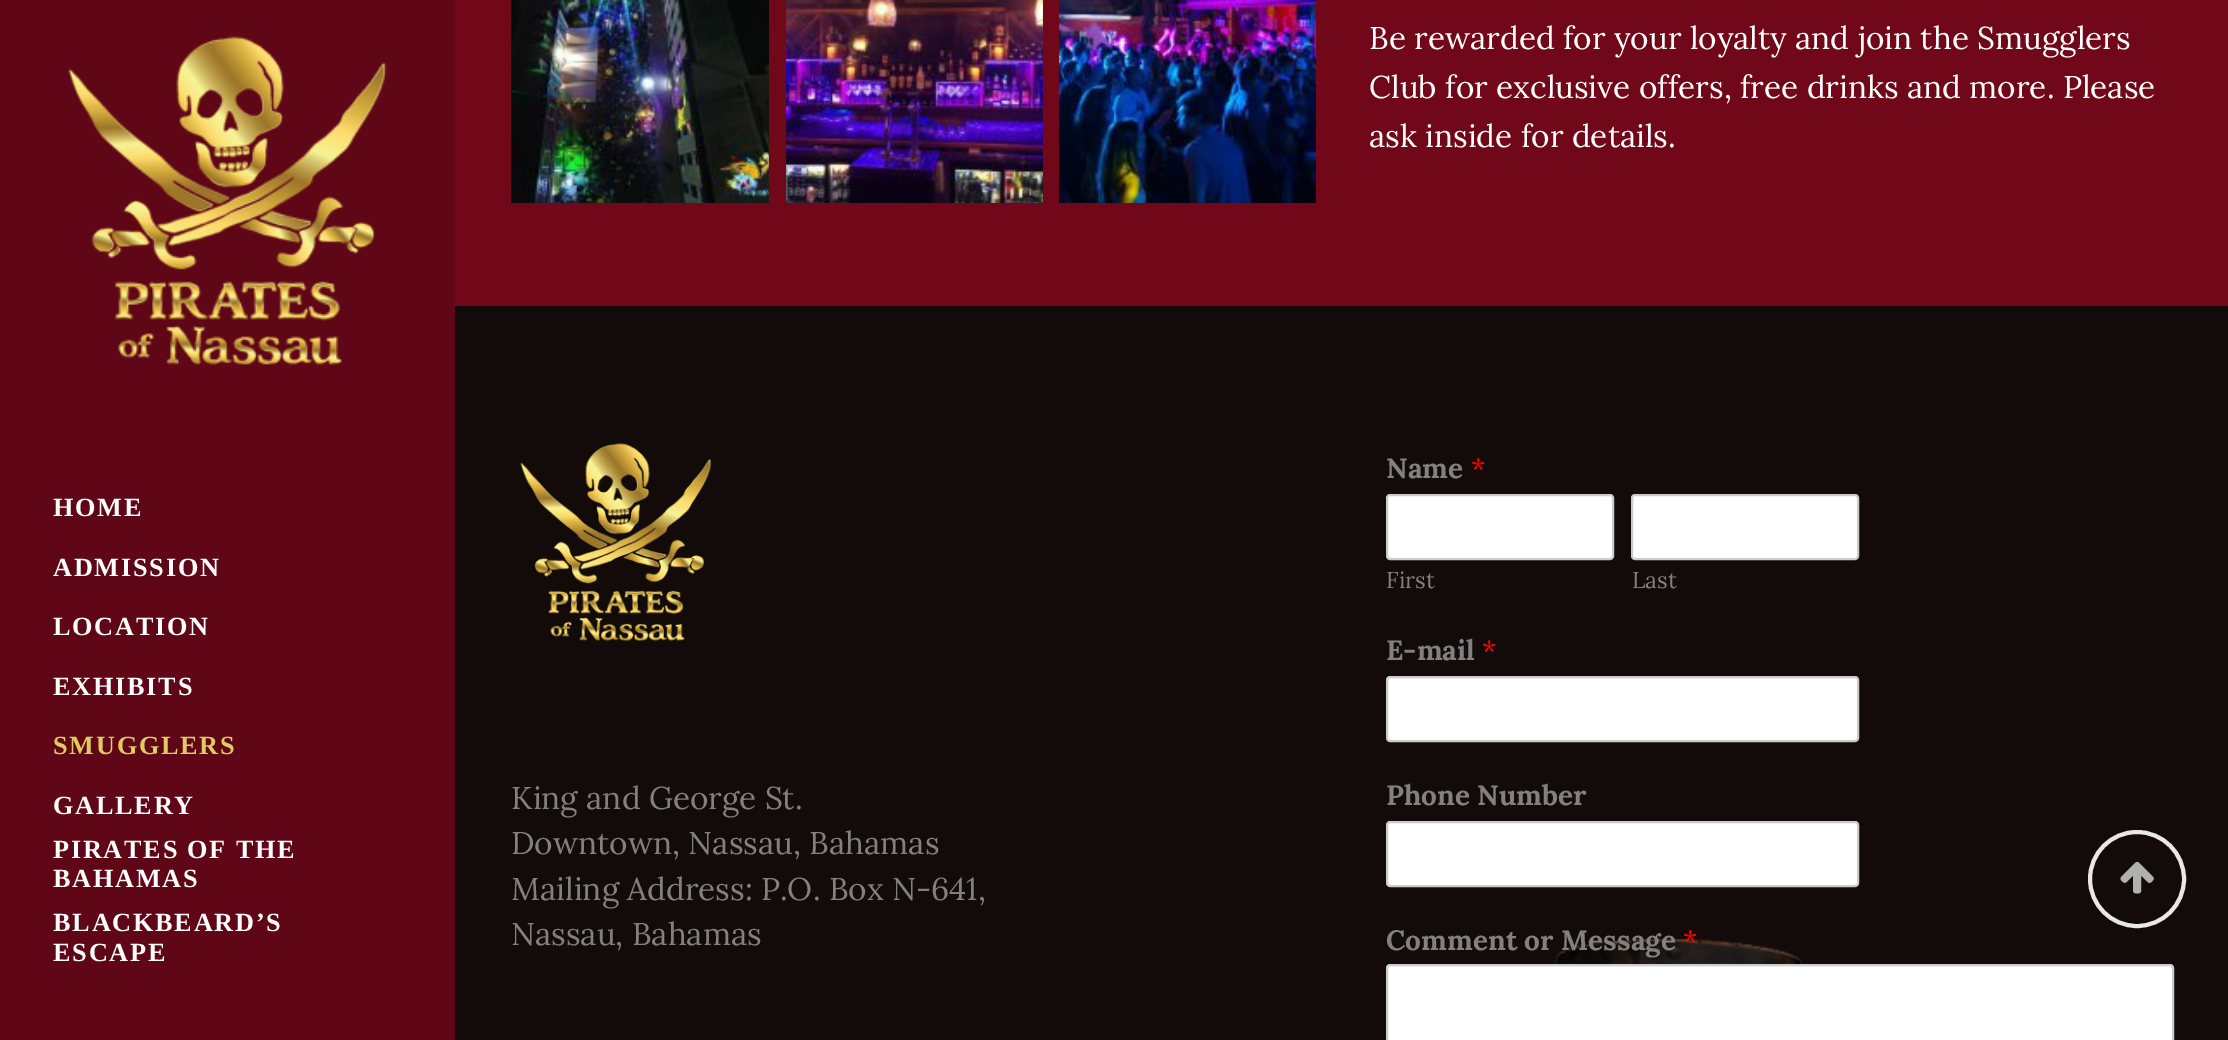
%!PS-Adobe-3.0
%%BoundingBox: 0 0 2228 1040
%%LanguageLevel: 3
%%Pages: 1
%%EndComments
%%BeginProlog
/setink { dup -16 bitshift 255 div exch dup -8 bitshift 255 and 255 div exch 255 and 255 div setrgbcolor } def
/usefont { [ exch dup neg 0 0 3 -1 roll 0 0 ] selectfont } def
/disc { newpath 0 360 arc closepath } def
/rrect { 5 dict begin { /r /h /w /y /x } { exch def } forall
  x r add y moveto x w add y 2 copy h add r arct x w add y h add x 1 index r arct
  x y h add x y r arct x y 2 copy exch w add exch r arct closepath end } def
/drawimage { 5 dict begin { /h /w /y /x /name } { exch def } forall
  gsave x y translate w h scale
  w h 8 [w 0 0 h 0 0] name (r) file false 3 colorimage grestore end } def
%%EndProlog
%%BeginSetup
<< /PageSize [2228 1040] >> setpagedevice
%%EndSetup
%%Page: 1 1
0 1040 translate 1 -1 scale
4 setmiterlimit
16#71081A setink
0 0 2228 1040 rectfill
(img1.raw) 511 0 258 203 drawimage
(img2.raw) 786 0 257 203 drawimage
(img3.raw) 1059 0 257 203 drawimage
/Lora-Regular 31.5 usefont
16#FFFFFF setink
[
    [(Be rewarded for your loyalty and join the Smugglers) 1369 49]
    [(Club for exclusive offers, free drinks and more. Please) 1369 98]
    [(ask inside for details.) 1369 147]
] { aload pop moveto show } forall
16#5F0617 setink
0 0 455 1040 rectfill
(img4.raw) 68 36 319 329 drawimage
/LiberationSerif-Bold 26.25 usefont
16#FFFFFF setink
53 516 moveto 1.75 0 (HOME) ashow
53 576 moveto 1.75 0 (ADMISSION) ashow
53 635 moveto 1.75 0 (LOCATION) ashow
53 695 moveto 1.75 0 (EXHIBITS) ashow
16#E0CB60 setink
53 754 moveto 1.75 0 (SMUGGLERS) ashow
16#FFFFFF setink
53 814 moveto 1.75 0 (GALLERY) ashow
53 858 moveto 1.75 0 (PIRATES OF THE) ashow
53 887 moveto 1.75 0 (BAHAMAS) ashow
53 931 moveto 1.75 0 (BLACKBEARD’S) ashow
53 961 moveto 1.75 0 (ESCAPE) ashow
16#120B0A setink
455 306 1773 734 rectfill
(img5.raw) 1554 938 249 26 drawimage
(img6.raw) 520 443 192 198 drawimage
/Lora-Regular 31.5 usefont
16#818181 setink
[
    [(King and George St.) 511 809]
    [(Downtown, Nassau, Bahamas) 511 854]
    [(Mailing Address: P.O. Box N-641,) 511 900]
    [(Nassau, Bahamas) 511 945]
] { aload pop moveto show } forall
/Lora-Bold 28 usefont
1386 478 moveto (Name) show
/Lora-Regular 28 usefont
16#FF0000 setink
1471 478 moveto (*) show
16#FFFFFF setink
1387 495 226 64 3 rrect gsave fill grestore
16#CCCCCC setink
2 setlinewidth
stroke
/Lora-Regular 23 usefont
16#818181 setink
1386 588 moveto (First) show
16#FFFFFF setink
1632 495 226 64 3 rrect gsave fill grestore
16#CCCCCC setink
stroke
16#818181 setink
1632 588 moveto (Last) show
/Lora-Bold 28 usefont
1386 660 moveto (E-mail) show
/Lora-Regular 28 usefont
16#FF0000 setink
1482 660 moveto (*) show
16#FFFFFF setink
1387 677 471 64 3 rrect gsave fill grestore
16#CCCCCC setink
stroke
/Lora-Bold 28 usefont
16#818181 setink
1386 805 moveto (Phone Number) show
16#FFFFFF setink
1387 822 471 64 3 rrect gsave fill grestore
16#CCCCCC setink
stroke
16#818181 setink
1386 950 moveto (Comment or Message) show
/Lora-Regular 28 usefont
16#FF0000 setink
1683 950 moveto (*) show
16#FFFFFF setink
1387 965 786 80 3 rrect gsave fill grestore
16#CCCCCC setink
stroke
16#E8E8E8 setink
4 setlinewidth
2137 879 47 disc stroke
(img7.raw) 2120 861 34 33 drawimage
showpage
%%EOF
